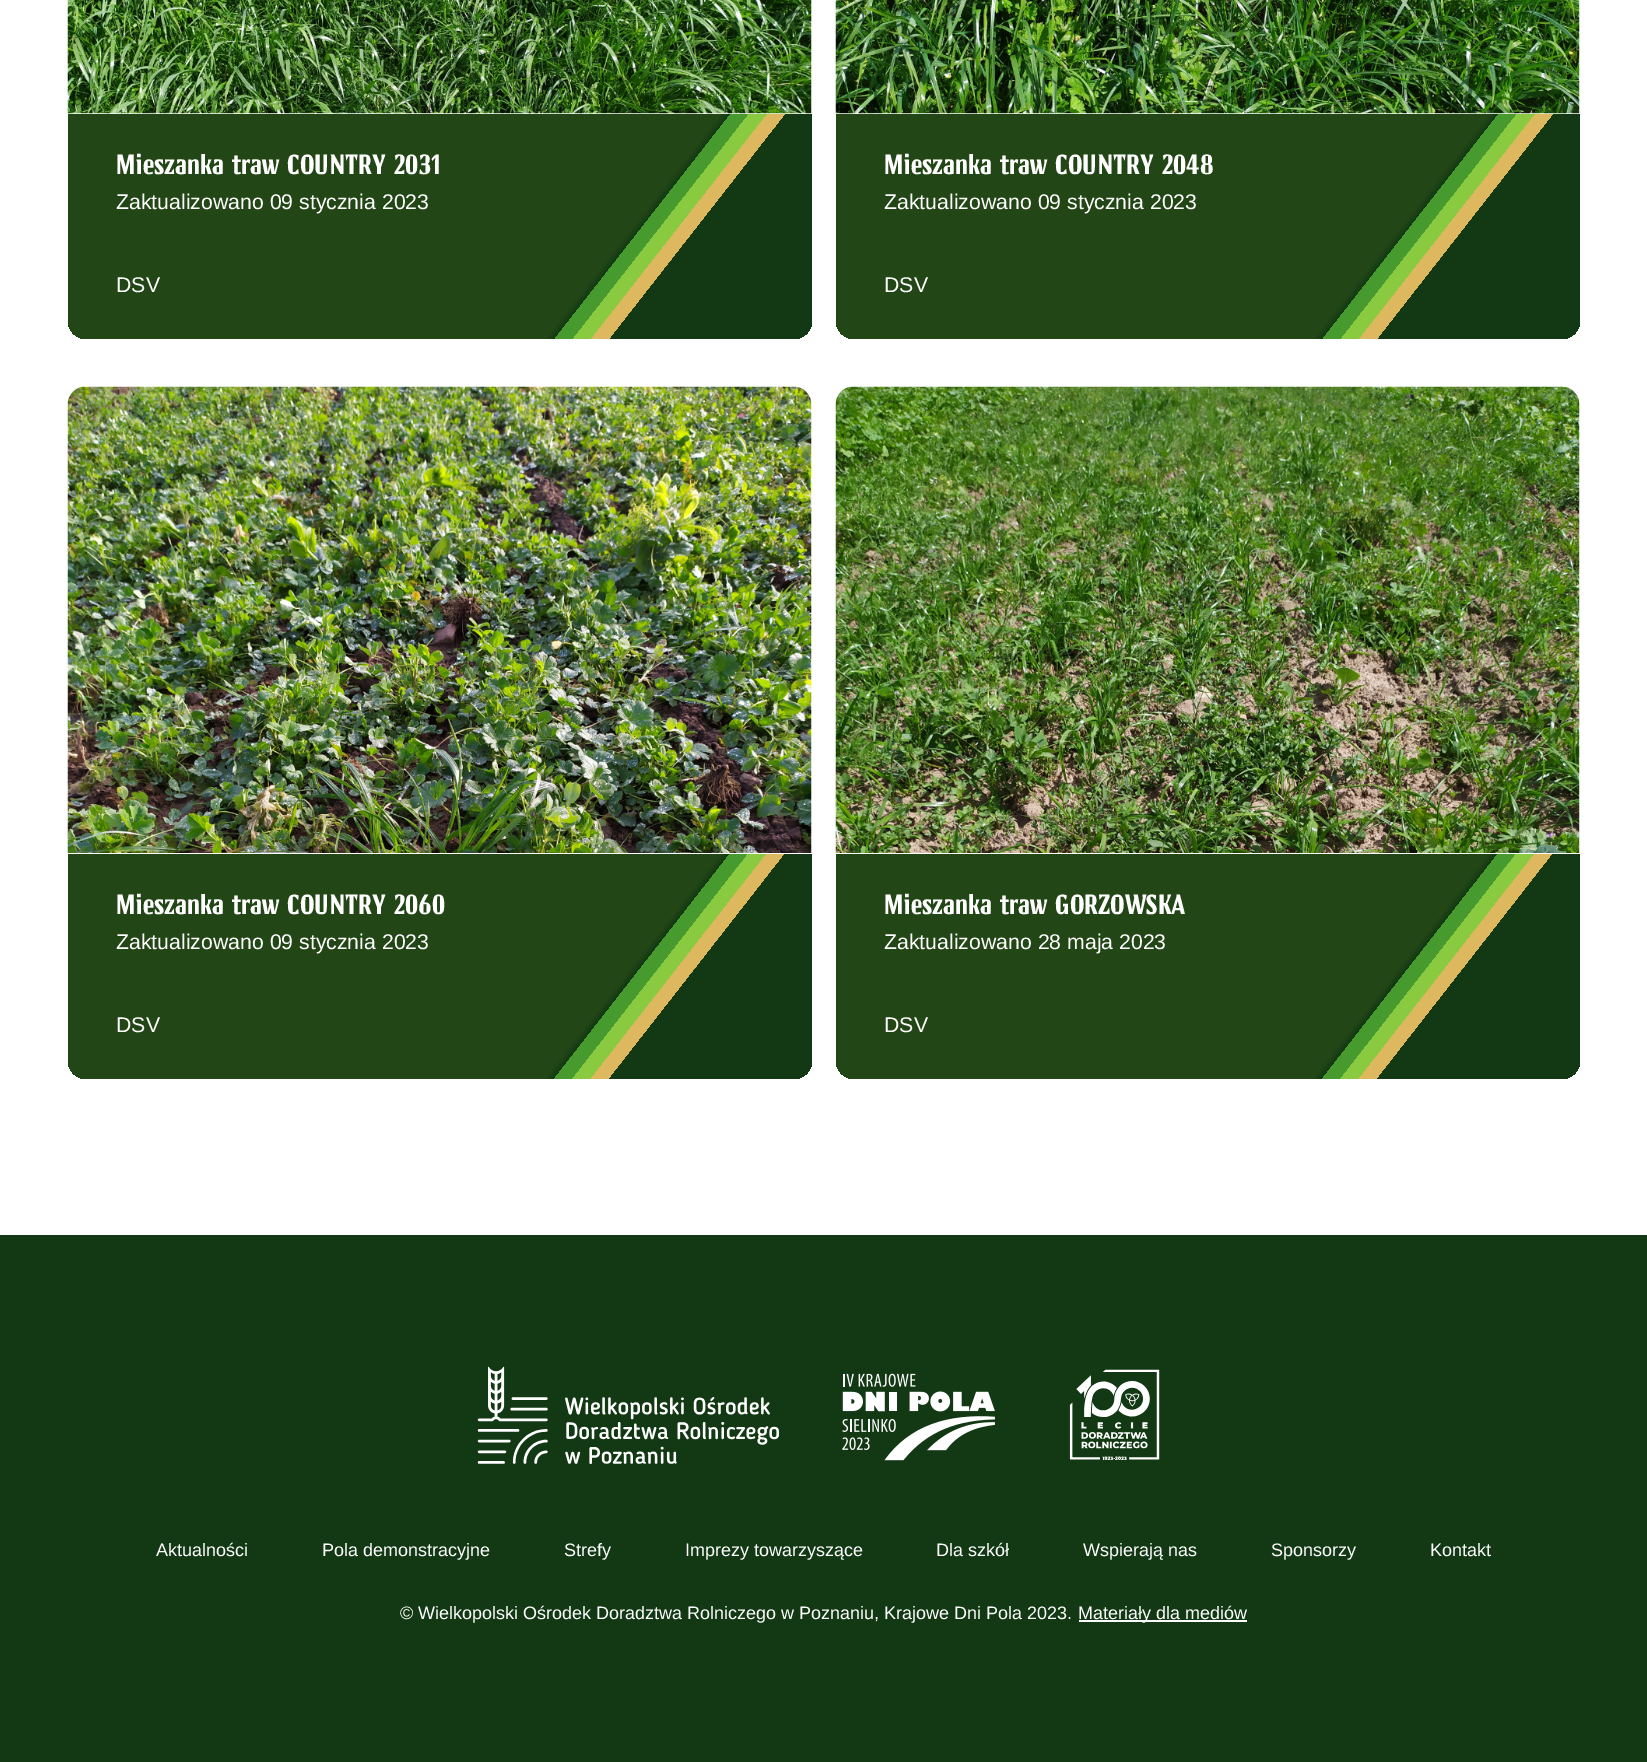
%!PS-Adobe-3.0
%%BoundingBox: 0 0 1647 1762
%%LanguageLevel: 3
%%Pages: 1
%%EndComments
%%BeginProlog
/setink { dup -16 bitshift 255 div exch dup -8 bitshift 255 and 255 div exch 255 and 255 div setrgbcolor } def
/usefont { [ exch dup neg 0 0 3 -1 roll 0 0 ] selectfont } def
/drawimage { 5 dict begin { /h /w /y /x /name } { exch def } forall
  gsave x y translate w h scale
  w h 8 [w 0 0 h 0 0] name (r) file false 3 colorimage grestore end } def
%%EndProlog
%%BeginSetup
<< /PageSize [1647 1762] >> setpagedevice
%%EndSetup
%%Page: 1 1
0 1762 translate 1 -1 scale
4 setmiterlimit
16#123913 setink
0 0 1647 1762 rectfill
16#FFFFFF setink
0 0 1647 1235 rectfill
(img1.raw) 67 0 745 114 drawimage
gsave 68 114 moveto 812 114 lineto 812 321 lineto 812 331 804 339 794 339 curveto 86 339 lineto 76 339 68 331 68 321 curveto closepath clip newpath
<< /ShadingType 2 /ColorSpace /DeviceRGB /Coords [154 3.4 725 450] /Extend [true true] /Function << /FunctionType 3 /Domain [0 1] /Functions [<< /FunctionType 2 /Domain [0 1] /C0 [0.137 0.275 0.086] /C1 [0.137 0.275 0.086] /N 1 >> << /FunctionType 2 /Domain [0 1] /C0 [0.137 0.275 0.086] /C1 [0.071 0.224 0.075] /N 1 >> << /FunctionType 2 /Domain [0 1] /C0 [0.278 0.604 0.176] /C1 [0.278 0.604 0.176] /N 1 >> << /FunctionType 2 /Domain [0 1] /C0 [0.537 0.792 0.255] /C1 [0.537 0.792 0.255] /N 1 >> << /FunctionType 2 /Domain [0 1] /C0 [0.867 0.722 0.373] /C1 [0.867 0.722 0.373] /N 1 >> << /FunctionType 2 /Domain [0 1] /C0 [0.071 0.224 0.075] /C1 [0.071 0.224 0.075] /N 1 >>] /Bounds [0.71 0.72 0.74 0.76 0.78] /Encode [0 1 0 1 0 1 0 1 0 1 0 1] >> >> shfill grestore
/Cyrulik-Regular 27.9 usefont
116 174 moveto (Mieszanka traw COUNTRY 2031) show
/LiberationSans-Regular 21.25 usefont
116 209 moveto (Zaktualizowano 09 stycznia 2023) show
116 292 moveto (DSV) show
(img2.raw) 835 0 745 114 drawimage
gsave 836 114 moveto 1580 114 lineto 1580 321 lineto 1580 331 1572 339 1562 339 curveto 854 339 lineto 844 339 836 331 836 321 curveto closepath clip newpath
<< /ShadingType 2 /ColorSpace /DeviceRGB /Coords [922 3.4 1493 450] /Extend [true true] /Function << /FunctionType 3 /Domain [0 1] /Functions [<< /FunctionType 2 /Domain [0 1] /C0 [0.137 0.275 0.086] /C1 [0.137 0.275 0.086] /N 1 >> << /FunctionType 2 /Domain [0 1] /C0 [0.137 0.275 0.086] /C1 [0.071 0.224 0.075] /N 1 >> << /FunctionType 2 /Domain [0 1] /C0 [0.278 0.604 0.176] /C1 [0.278 0.604 0.176] /N 1 >> << /FunctionType 2 /Domain [0 1] /C0 [0.537 0.792 0.255] /C1 [0.537 0.792 0.255] /N 1 >> << /FunctionType 2 /Domain [0 1] /C0 [0.867 0.722 0.373] /C1 [0.867 0.722 0.373] /N 1 >> << /FunctionType 2 /Domain [0 1] /C0 [0.071 0.224 0.075] /C1 [0.071 0.224 0.075] /N 1 >>] /Bounds [0.71 0.72 0.74 0.76 0.78] /Encode [0 1 0 1 0 1 0 1 0 1 0 1] >> >> shfill grestore
/Cyrulik-Regular 27.9 usefont
884 174 moveto (Mieszanka traw COUNTRY 2048) show
/LiberationSans-Regular 21.25 usefont
884 209 moveto (Zaktualizowano 09 stycznia 2023) show
884 292 moveto (DSV) show
(img3.raw) 67 386 745 467 drawimage
gsave 68 854 moveto 812 854 lineto 812 1061 lineto 812 1071 804 1079 794 1079 curveto 86 1079 lineto 76 1079 68 1071 68 1061 curveto closepath clip newpath
<< /ShadingType 2 /ColorSpace /DeviceRGB /Coords [154 743 725 1189] /Extend [true true] /Function << /FunctionType 3 /Domain [0 1] /Functions [<< /FunctionType 2 /Domain [0 1] /C0 [0.137 0.275 0.086] /C1 [0.137 0.275 0.086] /N 1 >> << /FunctionType 2 /Domain [0 1] /C0 [0.137 0.275 0.086] /C1 [0.071 0.224 0.075] /N 1 >> << /FunctionType 2 /Domain [0 1] /C0 [0.278 0.604 0.176] /C1 [0.278 0.604 0.176] /N 1 >> << /FunctionType 2 /Domain [0 1] /C0 [0.537 0.792 0.255] /C1 [0.537 0.792 0.255] /N 1 >> << /FunctionType 2 /Domain [0 1] /C0 [0.867 0.722 0.373] /C1 [0.867 0.722 0.373] /N 1 >> << /FunctionType 2 /Domain [0 1] /C0 [0.071 0.224 0.075] /C1 [0.071 0.224 0.075] /N 1 >>] /Bounds [0.71 0.72 0.74 0.76 0.78] /Encode [0 1 0 1 0 1 0 1 0 1 0 1] >> >> shfill grestore
/Cyrulik-Regular 27.9 usefont
116 914 moveto (Mieszanka traw COUNTRY 2060) show
/LiberationSans-Regular 21.25 usefont
116 949 moveto (Zaktualizowano 09 stycznia 2023) show
116 1032 moveto (DSV) show
(img4.raw) 835 386 745 467 drawimage
gsave 836 854 moveto 1580 854 lineto 1580 1061 lineto 1580 1071 1572 1079 1562 1079 curveto 854 1079 lineto 844 1079 836 1071 836 1061 curveto closepath clip newpath
<< /ShadingType 2 /ColorSpace /DeviceRGB /Coords [922 743 1493 1189] /Extend [true true] /Function << /FunctionType 3 /Domain [0 1] /Functions [<< /FunctionType 2 /Domain [0 1] /C0 [0.137 0.275 0.086] /C1 [0.137 0.275 0.086] /N 1 >> << /FunctionType 2 /Domain [0 1] /C0 [0.137 0.275 0.086] /C1 [0.071 0.224 0.075] /N 1 >> << /FunctionType 2 /Domain [0 1] /C0 [0.278 0.604 0.176] /C1 [0.278 0.604 0.176] /N 1 >> << /FunctionType 2 /Domain [0 1] /C0 [0.537 0.792 0.255] /C1 [0.537 0.792 0.255] /N 1 >> << /FunctionType 2 /Domain [0 1] /C0 [0.867 0.722 0.373] /C1 [0.867 0.722 0.373] /N 1 >> << /FunctionType 2 /Domain [0 1] /C0 [0.071 0.224 0.075] /C1 [0.071 0.224 0.075] /N 1 >>] /Bounds [0.71 0.72 0.74 0.76 0.78] /Encode [0 1 0 1 0 1 0 1 0 1 0 1] >> >> shfill grestore
/Cyrulik-Regular 27.9 usefont
884 914 moveto (Mieszanka traw GORZOWSKA) show
/LiberationSans-Regular 21.25 usefont
884 949 moveto (Zaktualizowano 28 maja 2023) show
884 1032 moveto (DSV) show
(img5.raw) 477 1366 302 98 drawimage
(img6.raw) 842 1373 153 88 drawimage
(img7.raw) 1069 1369 91 91 drawimage
/LiberationSans-Regular 18 usefont
[
    [(Aktualności) 156 1556]
    [(Pola demonstracyjne) 322 1556]
    [(Strefy) 564 1556]
    [(Imprezy towarzyszące) 685 1556]
    [(Dla szkół) 936 1556]
    [(Wspierają nas) 1083 1556]
    [(Sponsorzy) 1271 1556]
    [(Kontakt) 1430 1556]
    [(© Wielkopolski Ośrodek Doradztwa Rolniczego w Poznaniu, Krajowe Dni Pola 2023.) 400 1619]
] { aload pop moveto show } forall
1079 1620 168 2 rectfill
1078 1619 moveto (Materiały dla mediów) show
showpage
%%EOF
